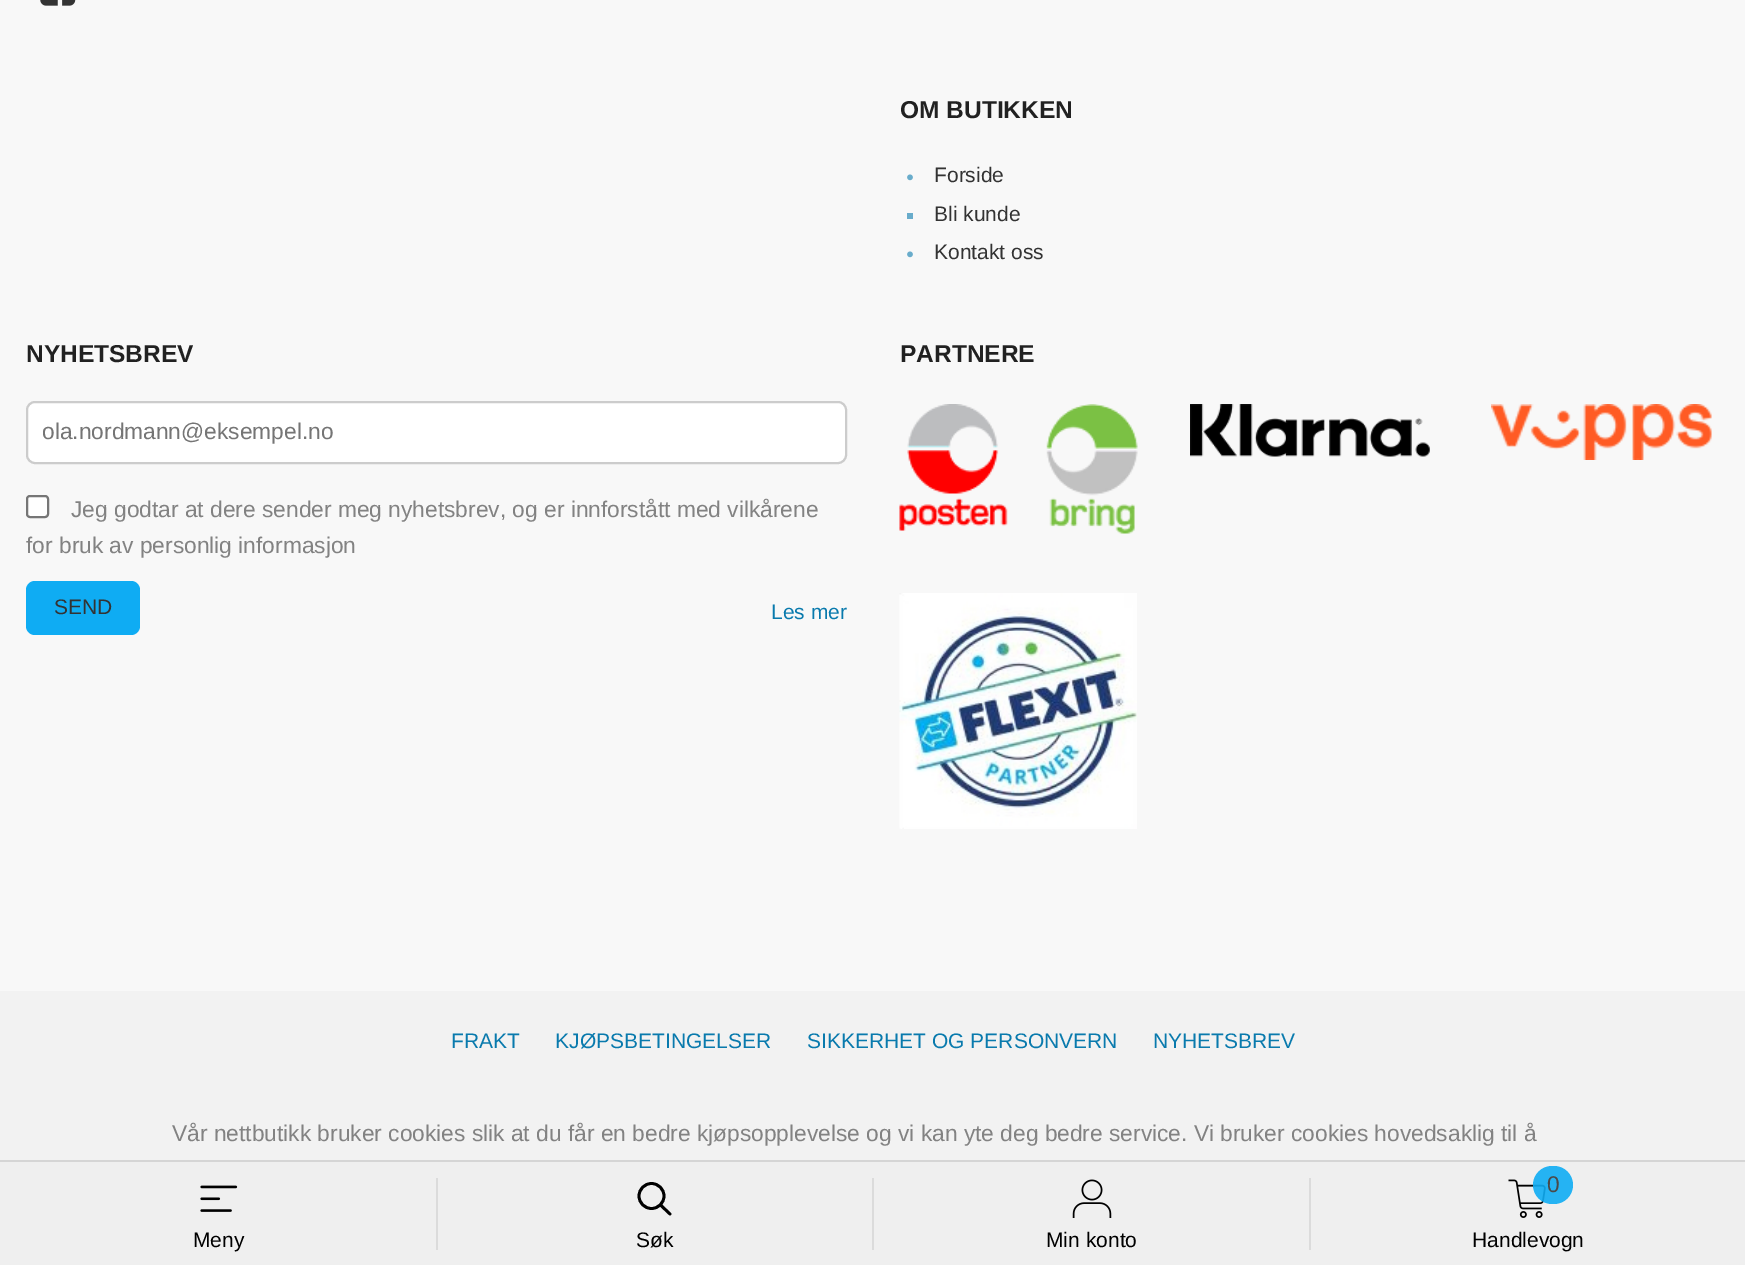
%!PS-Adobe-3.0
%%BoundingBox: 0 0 1745 1265
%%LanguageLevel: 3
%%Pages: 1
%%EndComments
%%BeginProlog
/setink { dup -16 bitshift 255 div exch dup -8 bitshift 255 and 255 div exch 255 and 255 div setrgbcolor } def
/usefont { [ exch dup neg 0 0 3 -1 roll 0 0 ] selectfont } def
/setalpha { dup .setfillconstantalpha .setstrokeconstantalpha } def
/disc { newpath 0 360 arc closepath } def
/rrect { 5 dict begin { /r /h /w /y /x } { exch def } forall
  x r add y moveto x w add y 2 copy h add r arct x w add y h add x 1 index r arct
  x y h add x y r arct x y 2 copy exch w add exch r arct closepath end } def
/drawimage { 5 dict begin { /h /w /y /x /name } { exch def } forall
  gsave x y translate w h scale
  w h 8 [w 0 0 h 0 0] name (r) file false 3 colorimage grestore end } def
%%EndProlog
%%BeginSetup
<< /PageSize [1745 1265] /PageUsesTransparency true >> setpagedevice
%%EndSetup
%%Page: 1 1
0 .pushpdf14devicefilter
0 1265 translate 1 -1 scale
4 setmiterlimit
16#F8F8F8 setink
0 0 1745 1265 rectfill
(img1.raw) 40 0 36 6 drawimage
/LiberationSans-Bold 24.5 usefont
16#212121 setink
900 118 moveto (OM BUTIKKEN) show
(img2.raw) 907 174 6 7 drawimage
/LiberationSans-Regular 21 usefont
16#333333 setink
934 182 moveto (Forside) show
16#69ACCB setink
907 213 6 6 rectfill
16#333333 setink
934 221 moveto (Bli kunde) show
(img2.raw) 907 251 6 7 drawimage
934 259 moveto (Kontakt oss) show
/LiberationSans-Bold 24.5 usefont
16#212121 setink
26 362 moveto (NYHETSBREV) show
16#FFFFFF setink
27 402 819 61 8 rrect gsave fill grestore
16#CCCCCC setink
2 setlinewidth
stroke
/LiberationSans-Regular 22.75 usefont
16#757575 setink
42 439 moveto (ola.nordmann@eksempel.no) show
16#FFFFFF setink
27 496 21 21 3 rrect gsave fill grestore
16#767676 setink
stroke
16#828282 setink
71 517 moveto (Jeg godtar at dere sender meg nyhetsbrev, og er innforstått med vilkårene) show
26 553 moveto (for bruk av personlig informasjon) show
16#0FACF3 setink
26 581 114 54 9 rrect fill
/LiberationSans-Regular 21 usefont
16#333333 setink
54 614 moveto (SEND) show
16#097AAD setink
771 619 moveto (Les mer) show
/LiberationSans-Bold 24.5 usefont
16#212121 setink
900 362 moveto (PARTNERE) show
(img3.raw) 899 404 239 130 drawimage
(img4.raw) 1190 404 240 53 drawimage
(img5.raw) 1491 404 221 56 drawimage
(img6.raw) 899 593 238 236 drawimage
16#F2F2F2 setink
0 991 1745 169 rectfill
/LiberationSans-Regular 21 usefont
16#097AAD setink
[
    [(FRAKT) 451 1048]
    [(KJØPSBETINGELSER) 555 1048]
    [(SIKKERHET OG PERSONVERN) 807 1048]
    [(NYHETSBREV) 1153 1048]
] { aload pop moveto show } forall
/LiberationSans-Regular 22.75 usefont
16#828282 setink
172 1141 moveto (Vår nettbutikk bruker cookies slik at du får en bedre kjøpsopplevelse og vi kan yte deg bedre service. Vi bruker cookies hovedsaklig til å) show
16#EFEFEF setink
0 1162 1745 103 rectfill
16#D5D5D5 setink
0 1160 1745 2 rectfill
(img7.raw) 200 1185 38 27 drawimage
/LiberationSans-Regular 21 usefont
16#000000 setink
193 1247 moveto (Meny) show
16#DBDBDB setink
436 1178 2 72 rectfill
16#000000 setink
2.8 setlinewidth
651.5 1196 12.5 disc stroke
1 setlinecap
670 1214 moveto 660.5 1205 lineto stroke
636 1247 moveto (Søk) show
16#DBDBDB setink
872 1178 2 72 rectfill
(img8.raw) 1072 1179 40 39 drawimage
16#000000 setink
1046 1247 moveto (Min konto) show
16#DBDBDB setink
1309 1178 2 72 rectfill
(img9.raw) 1508 1179 38 39 drawimage
0.9 setalpha
16#0FACF3 setink
1533 1166 40 38 19 rrect fill
/LiberationSans-Regular 22.75 usefont
1 setalpha
16#4A4A4A setink
1547 1192 moveto (0) show
/LiberationSans-Regular 21 usefont
16#000000 setink
1472 1247 moveto (Handlevogn) show
.poppdf14devicefilter showpage
%%EOF
